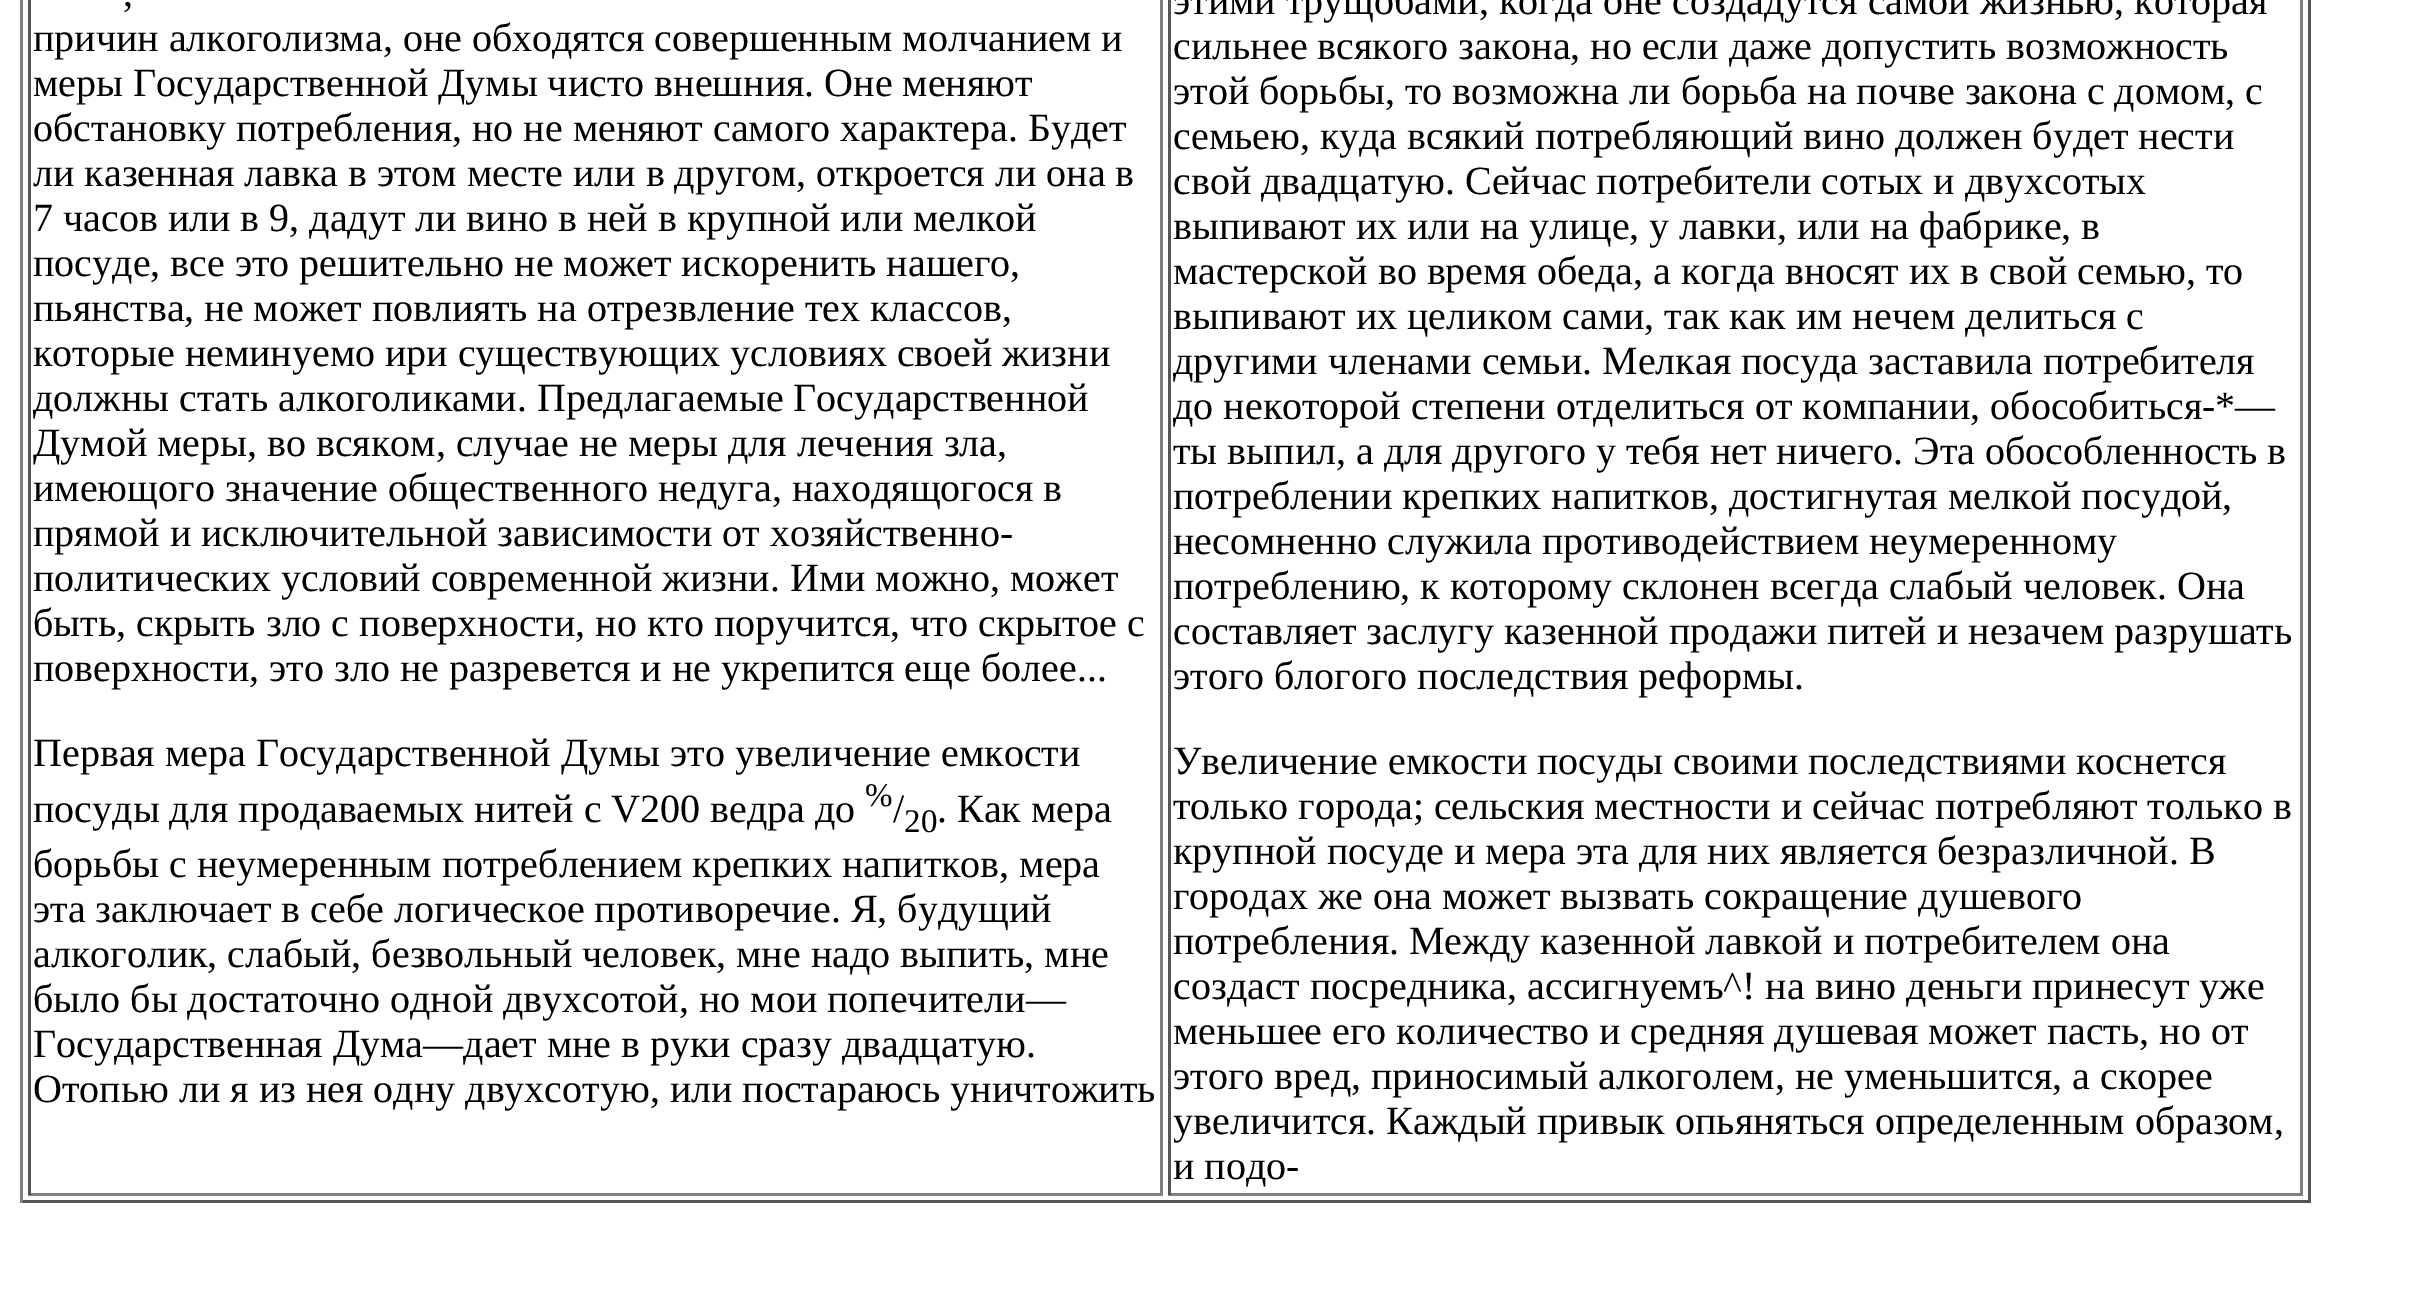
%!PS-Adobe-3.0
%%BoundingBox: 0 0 2430 1302
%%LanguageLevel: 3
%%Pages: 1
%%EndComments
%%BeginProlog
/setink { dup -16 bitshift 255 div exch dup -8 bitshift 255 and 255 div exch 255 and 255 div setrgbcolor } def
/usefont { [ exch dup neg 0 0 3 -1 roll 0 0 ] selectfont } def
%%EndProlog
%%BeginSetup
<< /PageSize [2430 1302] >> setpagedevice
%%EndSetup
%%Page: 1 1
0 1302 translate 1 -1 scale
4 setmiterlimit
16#FFFFFF setink
0 0 2430 1302 rectfill
[
    [2308 0 3 1203 16#555555]
    [20 1200 2290 3 16#555555]
    [20 0 3 1203 16#808080]
    [1160 0 3 1195 16#808080]
    [28 1193 1135 3 16#808080]
    [28 0 3 1195 16#555555]
] { aload pop setink rectfill } forall
/LiberationSerif-Regular 40 usefont
16#000000 setink
[
    [(,) 123 6]
    [(причин алкоголизма, оне обходятся совершенным молчанием и) 33 51]
    [(меры Государственной Думы чисто внешния. Оне меняют) 33 96]
    [(обстановку потребления, но не меняют самого характера. Будет) 33 141]
    [(ли казенная лавка в этом месте или в другом, откроется ли она в) 33 186]
    [(7 часов или в 9, дадут ли вино в ней в крупной или мелкой) 33 231]
    [(посуде, все это решительно не может искоренить нашего,) 33 276]
    [(пьянства, не может повлиять на отрезвление тех классов,) 33 321]
    [(которые неминуемо ири существующих условиях своей жизни) 33 366]
    [(должны стать алкоголиками. Предлагаемые Государственной) 33 411]
    [(Думой меры, во всяком, случае не меры для лечения зла,) 33 456]
    [(имеющого значение общественного недуга, находящогося в) 33 501]
    [(прямой и исключительной зависимости от хозяйственно-) 33 546]
    [(политических условий современной жизни. Ими можно, может) 33 591]
    [(быть, скрыть зло с поверхности, но кто поручится, что скрытое с) 33 636]
    [(поверхности, это зло не разревется и не укрепится еще более...) 33 681]
    [(Первая мера Государственной Думы это увеличение емкости) 33 766]
    [(посуды для продаваемых нитей с V200 ведра до) 33 822]
] { aload pop moveto show } forall
/LiberationSerif-Regular 33 usefont
865 806 moveto (%) show
/LiberationSerif-Regular 40 usefont
893 822 moveto (/) show
/LiberationSerif-Regular 33 usefont
904 832 moveto (20) show
/LiberationSerif-Regular 40 usefont
[
    [(. Как мера) 937 822]
    [(борьбы с неумеренным потреблением крепких напитков, мера) 33 877]
    [(эта заключает в себе логическое противоречие. Я, будущий) 33 922]
    [(алкоголик, слабый, безвольный человек, мне надо выпить, мне) 33 967]
    [(было бы достаточно одной двухсотой, но мои попечители—) 33 1012]
    [(Государственная Дума—дает мне в руки сразу двадцатую.) 33 1057]
    [(Отопью ли я из нея одну двухсотую, или постараюсь уничтожить) 33 1102]
] { aload pop moveto show } forall
[
    [2300 0 3 1195 16#808080]
    [1168 1193 1135 3 16#808080]
    [1168 0 3 1195 16#555555]
] { aload pop setink rectfill } forall
16#000000 setink
[
    [(этими трущобами, когда оне создадутся самой жизнью, которая) 1173 14]
    [(сильнее всякого закона, но если даже допустить возможность) 1173 59]
    [(этой борьбы, то возможна ли борьба на почве закона с домом, с) 1173 104]
    [(семьею, куда всякий потребляющий вино должен будет нести) 1173 149]
    [(свой двадцатую. Сейчас потребители сотых и двухсотых) 1173 194]
    [(выпивают их или на улице, у лавки, или на фабрике, в) 1173 239]
    [(мастерской во время обеда, а когда вносят их в свой семью, то) 1173 284]
    [(выпивают их целиком сами, так как им нечем делиться с) 1173 329]
    [(другими членами семьи. Мелкая посуда заставила потребителя) 1173 374]
    [(до некоторой степени отделиться от компании, обособиться-*—) 1173 419]
    [(ты выпил, а для другого у тебя нет ничего. Эта обособленность в) 1173 464]
    [(потреблении крепких напитков, достигнутая мелкой посудой,) 1173 509]
    [(несомненно служила противодействием неумеренному) 1173 554]
    [(потреблению, к которому склонен всегда слабый человек. Она) 1173 599]
    [(составляет заслугу казенной продажи питей и незачем разрушать) 1173 644]
    [(этого блогого последствия реформы.) 1173 689]
    [(Увеличение емкости посуды своими последствиями коснется) 1173 774]
    [(только города; сельския местности и сейчас потребляют только в) 1173 819]
    [(крупной посуде и мера эта для них является безразличной. В) 1173 864]
    [(городах же она может вызвать сокращение душевого) 1173 909]
    [(потребления. Между казенной лавкой и потребителем она) 1173 954]
    [(создаст посредника, ассигнуемъ^! на вино деньги принесут уже) 1173 999]
    [(меньшее его количество и средняя душевая может пасть, но от) 1173 1044]
    [(этого вред, приносимый алкоголем, не уменьшится, а скорее) 1173 1089]
    [(увеличится. Каждый привык опьяняться определенным образом,) 1173 1134]
    [(и подо-) 1173 1179]
] { aload pop moveto show } forall
showpage
%%EOF
